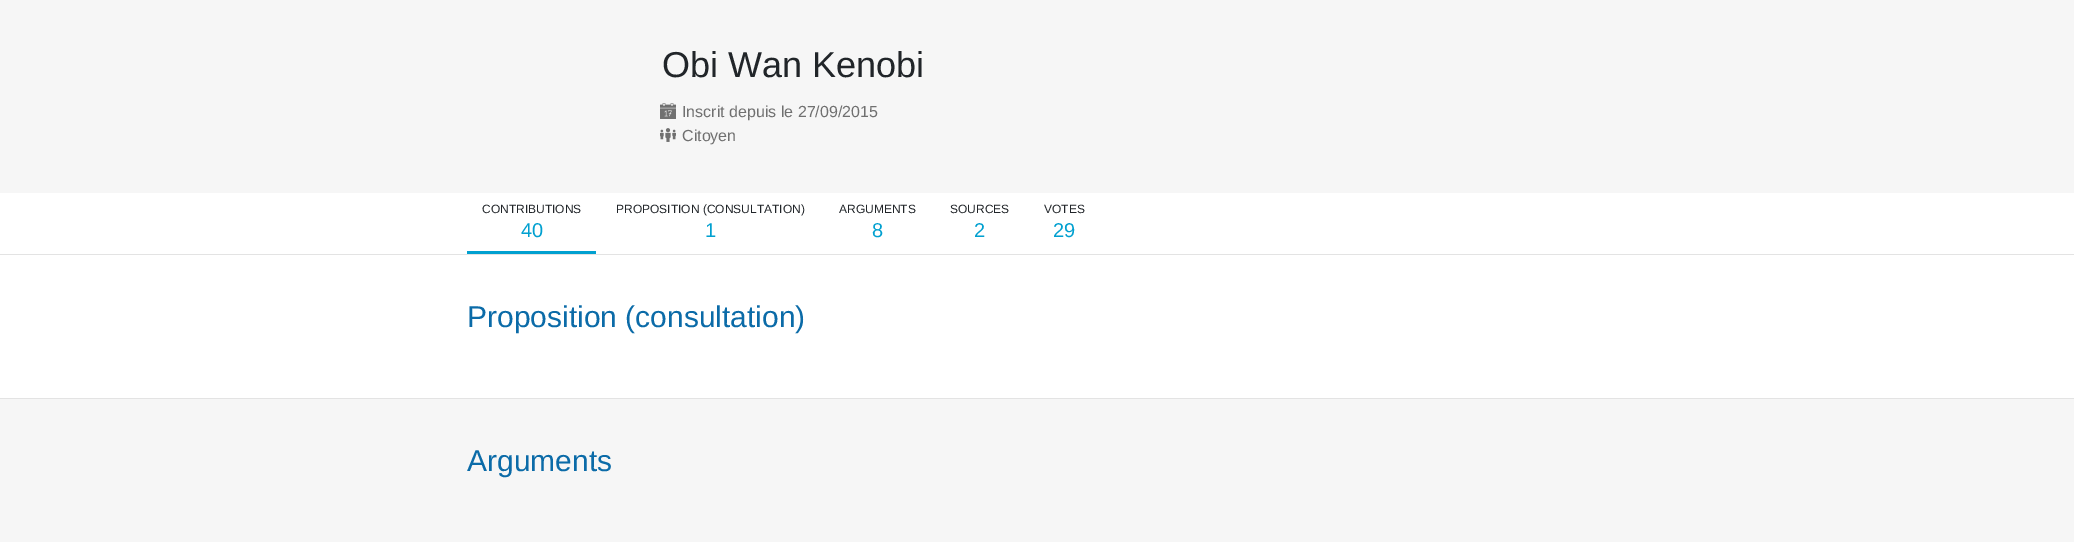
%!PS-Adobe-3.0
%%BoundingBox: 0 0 2074 543
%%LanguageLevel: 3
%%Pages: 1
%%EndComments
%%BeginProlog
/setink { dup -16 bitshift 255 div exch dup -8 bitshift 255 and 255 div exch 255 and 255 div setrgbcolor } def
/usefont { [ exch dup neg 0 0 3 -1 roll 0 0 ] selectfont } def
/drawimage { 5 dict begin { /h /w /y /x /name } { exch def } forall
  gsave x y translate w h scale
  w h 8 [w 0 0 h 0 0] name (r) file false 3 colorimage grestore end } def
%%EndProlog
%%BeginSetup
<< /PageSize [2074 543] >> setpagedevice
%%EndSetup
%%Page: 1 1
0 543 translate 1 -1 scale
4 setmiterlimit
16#FFFFFF setink
0 0 2074 543 rectfill
16#F6F6F6 setink
0 0 2074 193 rectfill
/LiberationSans-Regular 36 usefont
16#212529 setink
662 77 moveto (Obi Wan Kenobi) show
(img1.raw) 660 103 16 16 drawimage
/LiberationSans-Regular 16 usefont
16#707070 setink
682 117 moveto (Inscrit depuis le 27/09/2015) show
(img2.raw) 660 128 16 14 drawimage
682 141 moveto (Citoyen) show
16#E3E3E3 setink
0 254 2074 1 rectfill
16#01A0D0 setink
467 251 129 3 rectfill
/LiberationSans-Regular 12 usefont
16#212529 setink
482 213 moveto (CONTRIBUTIONS) show
/LiberationSans-Regular 20 usefont
16#01A0D0 setink
521 237 moveto (40) show
/LiberationSans-Regular 12 usefont
16#212529 setink
616 213 moveto (PROPOSITION \(CONSULTATION\)) show
/LiberationSans-Regular 20 usefont
16#01A0D0 setink
705 237 moveto (1) show
/LiberationSans-Regular 12 usefont
16#212529 setink
839 213 moveto (ARGUMENTS) show
/LiberationSans-Regular 20 usefont
16#01A0D0 setink
872 237 moveto (8) show
/LiberationSans-Regular 12 usefont
16#212529 setink
950 213 moveto (SOURCES) show
/LiberationSans-Regular 20 usefont
16#01A0D0 setink
974 237 moveto (2) show
/LiberationSans-Regular 12 usefont
16#212529 setink
1044 213 moveto (VOTES) show
/LiberationSans-Regular 20 usefont
16#01A0D0 setink
1053 237 moveto (29) show
/LiberationSans-Regular 30 usefont
16#0B6BA8 setink
467 327 moveto (Proposition \(consultation\)) show
16#F6F6F6 setink
0 399 2074 143 rectfill
16#E3E3E3 setink
0 398 2074 1 rectfill
16#0B6BA8 setink
467 471 moveto (Arguments) show
showpage
%%EOF
